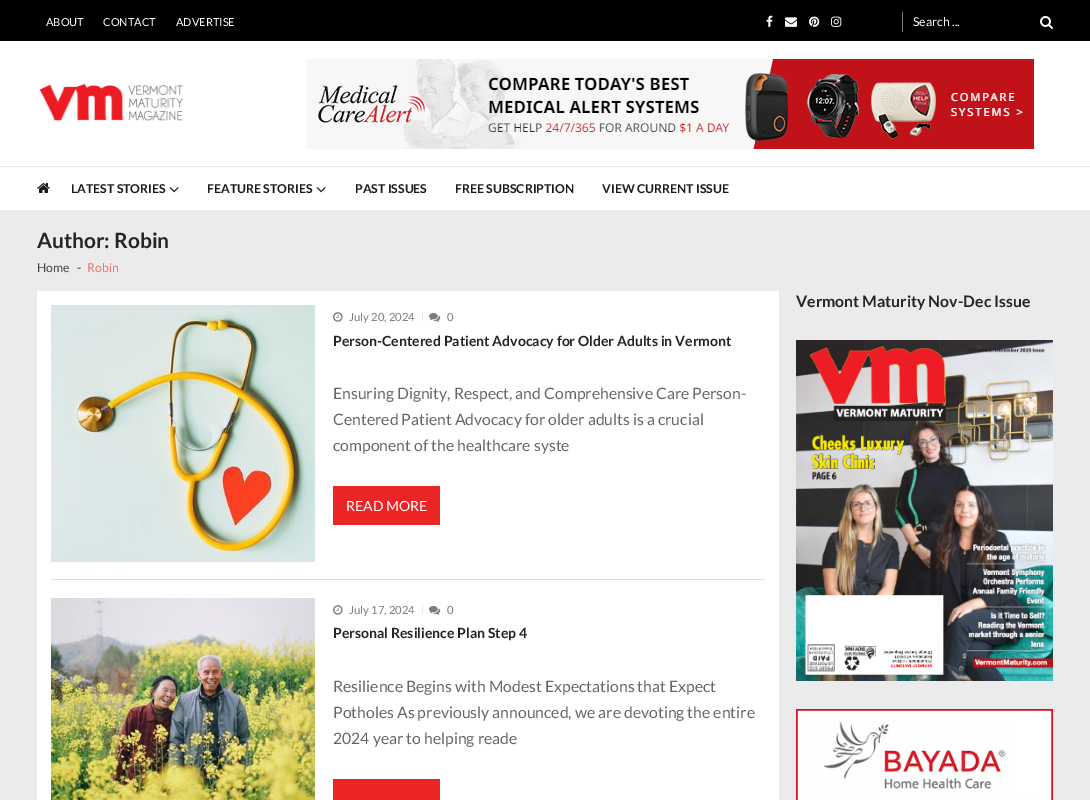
%!PS-Adobe-3.0
%%BoundingBox: 0 0 1090 800
%%LanguageLevel: 3
%%Pages: 1
%%EndComments
%%BeginProlog
/setink { dup -16 bitshift 255 div exch dup -8 bitshift 255 and 255 div exch 255 and 255 div setrgbcolor } def
/usefont { [ exch dup neg 0 0 3 -1 roll 0 0 ] selectfont } def
/drawimage { 5 dict begin { /h /w /y /x /name } { exch def } forall
  gsave x y translate w h scale
  w h 8 [w 0 0 h 0 0] name (r) file false 3 colorimage grestore end } def
%%EndProlog
%%BeginSetup
<< /PageSize [1090 800] >> setpagedevice
%%EndSetup
%%Page: 1 1
0 800 translate 1 -1 scale
4 setmiterlimit
16#EBEBEB setink
0 0 1090 800 rectfill
16#000000 setink
0 0 1090 41 rectfill
/Lato-Regular 11 usefont
16#FFFFFF setink
[
    [(ABOUT) 46 26]
    [(CONTACT) 103 26]
    [(ADVERTISE) 176 26]
] { aload pop moveto show } forall
(img1.raw) 766 15 7 12 drawimage
(img2.raw) 785 17 12 10 drawimage
(img3.raw) 809 16 11 11 drawimage
(img4.raw) 831 16 11 11 drawimage
16#808080 setink
902 12 1 20 rectfill
/Lato-Regular 12.25 usefont
16#FFFFFF setink
913 26 moveto (Search ...) show
(img5.raw) 1040 16 13 13 drawimage
0 41 1090 125 rectfill
(img6.raw) 39 83 145 38 drawimage
(img7.raw) 306 59 728 90 drawimage
0 167 1090 43 rectfill
(img8.raw) 37 183 13 10 drawimage
/Lato-Bold 12.25 usefont
16#1A1A1A setink
71 193 moveto (LATEST STORIES) show
(img9.raw) 169 187 10 6 drawimage
207 193 moveto (FEATURE STORIES) show
(img9.raw) 316 187 10 6 drawimage
[
    [(PAST ISSUES) 355 193]
    [(FREE SUBSCRIPTION) 455 193]
    [(VIEW CURRENT ISSUE) 602 193]
] { aload pop moveto show } forall
/Lato-Bold 21 usefont
16#252525 setink
37 248 moveto (Author: Robin) show
/Lato-Regular 12.25 usefont
16#444444 setink
37 272 moveto (Home) show
77 272 moveto (-) show
16#EB7474 setink
87 272 moveto (Robin) show
/Lato-Bold 15.75 usefont
16#252525 setink
796 307 moveto (Vermont Maturity Nov-Dec Issue) show
(img10.raw) 796 340 257 341 drawimage
(img11.raw) 796 709 257 91 drawimage
16#FFFFFF setink
37 291 742 509 rectfill
16#DDDDDD setink
51 579 714 1 rectfill
(img12.raw) 51 305 264 257 drawimage
(img13.raw) 333 312 10 10 drawimage
/Lato-Regular 11.25 usefont
16#7C7C7C setink
349 321 moveto (July 20, 2024) show
16#E6E6E6 setink
422 313 1 8 rectfill
(img14.raw) 429 313 12 9 drawimage
16#7C7C7C setink
447 321 moveto (0) show
/Lato-Bold 14 usefont
16#252525 setink
333 346 moveto (Person-Centered Patient Advocacy for Older Adults in Vermont) show
/Lato-Regular 15.75 usefont
16#666666 setink
[
    [(Ensuring Dignity, Respect, and Comprehensive Care Person-) 333 399]
    [(Centered Patient Advocacy for older adults is a crucial) 333 425]
    [(component of the healthcare syste) 333 451]
] { aload pop moveto show } forall
16#EB2525 setink
333 486 107 39 rectfill
/Lato-Regular 14 usefont
16#FFFFFF setink
346 511 moveto (READ MORE) show
(img15.raw) 51 598 264 202 drawimage
(img13.raw) 333 605 10 10 drawimage
/Lato-Regular 11.25 usefont
16#7C7C7C setink
349 614 moveto (July 17, 2024) show
16#E6E6E6 setink
422 605 1 9 rectfill
(img14.raw) 429 606 12 9 drawimage
16#7C7C7C setink
447 614 moveto (0) show
/Lato-Bold 14 usefont
16#252525 setink
333 638 moveto (Personal Resilience Plan Step 4) show
/Lato-Regular 15.75 usefont
16#666666 setink
[
    [(Resilience Begins with Modest Expectations that Expect) 333 692]
    [(Potholes As previously announced, we are devoting the entire) 333 718]
    [(2024 year to helping reade) 333 744]
] { aload pop moveto show } forall
16#EB2525 setink
333 779 107 21 rectfill
showpage
%%EOF
